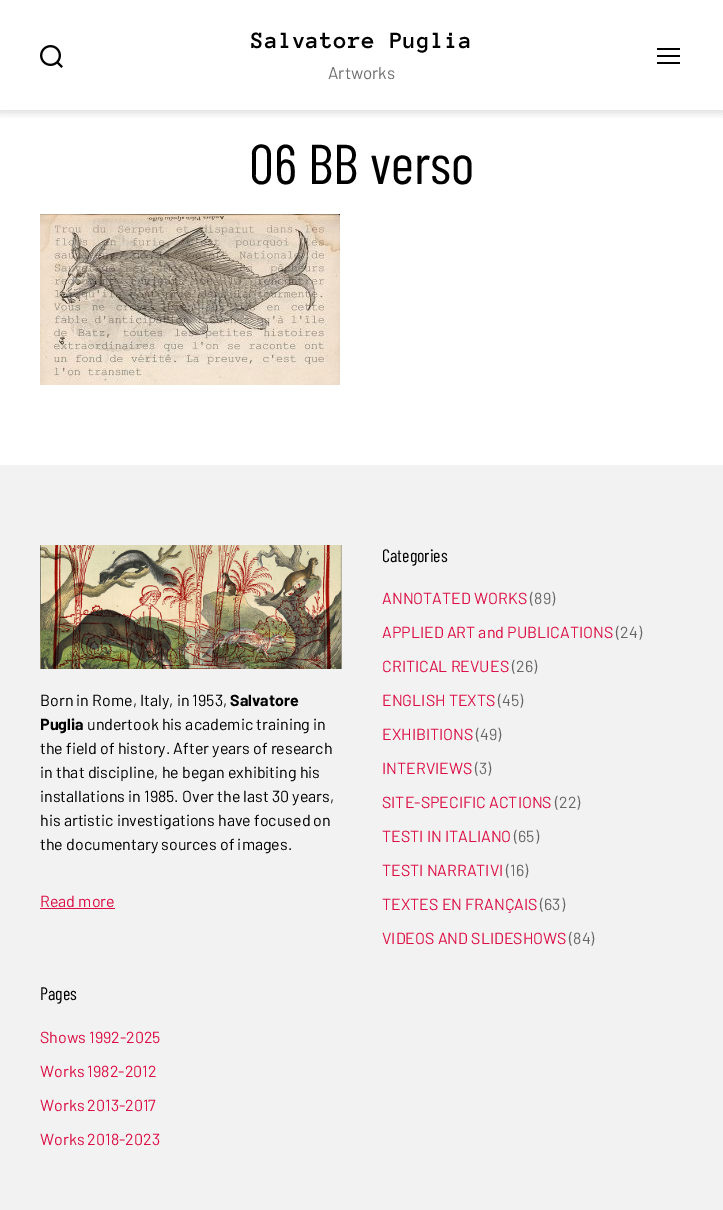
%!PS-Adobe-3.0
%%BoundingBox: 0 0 723 1210
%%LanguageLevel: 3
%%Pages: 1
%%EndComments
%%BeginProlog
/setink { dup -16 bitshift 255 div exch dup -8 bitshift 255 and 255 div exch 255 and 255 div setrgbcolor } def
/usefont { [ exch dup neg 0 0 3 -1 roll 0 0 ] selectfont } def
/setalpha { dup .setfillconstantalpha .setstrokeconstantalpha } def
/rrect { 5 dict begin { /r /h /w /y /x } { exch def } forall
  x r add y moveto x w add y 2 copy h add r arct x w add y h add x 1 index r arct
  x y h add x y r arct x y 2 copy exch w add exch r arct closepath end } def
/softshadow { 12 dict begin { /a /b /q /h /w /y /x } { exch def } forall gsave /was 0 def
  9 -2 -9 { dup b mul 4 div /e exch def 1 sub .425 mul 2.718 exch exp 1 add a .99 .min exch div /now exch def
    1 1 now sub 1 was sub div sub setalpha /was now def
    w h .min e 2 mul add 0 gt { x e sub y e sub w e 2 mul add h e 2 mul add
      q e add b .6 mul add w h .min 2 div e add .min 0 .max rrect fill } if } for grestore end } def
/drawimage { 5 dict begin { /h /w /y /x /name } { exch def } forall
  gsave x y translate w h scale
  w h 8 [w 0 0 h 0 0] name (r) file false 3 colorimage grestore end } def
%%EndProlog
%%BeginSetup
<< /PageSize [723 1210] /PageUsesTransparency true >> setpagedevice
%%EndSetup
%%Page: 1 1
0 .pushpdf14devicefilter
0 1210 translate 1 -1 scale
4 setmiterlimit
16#FFFFFF setink
0 0 723 1210 rectfill
gsave
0 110 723 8 rectclip
16#000000 setink
0 2 723 110 0 5 0.16 softshadow
grestore
(img1.raw) 40 45 23 23 drawimage
/AnonymousPro-Bold 24 usefont
16#000000 setink
251 48 moveto 0.75 0 (Salvatore Puglia) ashow
/Barlow-Regular 17 usefont
16#6D6D6D setink
328 79 moveto (Artworks) show
[
    [657 48 23 2 16#000000]
    [657 62 23 2 16#000000]
    [657 55 23 2 16#000000]
] { aload pop setink rectfill } forall
/BarlowCondensed-Regular 56 usefont
249 184 moveto (06 BB verso) show
(img2.raw) 40 214 300 171 drawimage
16#F2F2F2 setink
0 465 723 745 rectfill
(img3.raw) 40 545 302 124 drawimage
/Barlow-Regular 16 usefont
16#000000 setink
40 706 moveto (Born in Rome, Italy, in 1953,) show
/Barlow-Bold 16 usefont
230 706 moveto (Salvatore) show
40 730 moveto (Puglia) show
/Barlow-Regular 16 usefont
[
    [(undertook his academic training in) 87 730]
    [(the field of history. After years of research) 40 754]
    [(in that discipline, he began exhibiting his) 40 778]
    [(installations in 1985. Over the last 30 years,) 40 802]
    [(his artistic investigations have focused on) 40 826]
    [(the documentary sources of images.) 40 850]
] { aload pop moveto show } forall
16#DB0F45 setink
40 907 moveto (Read more) show
40 908 75 1 rectfill
/BarlowCondensed-Regular 18 usefont
16#000000 setink
382 562 moveto (Categories) show
/Barlow-Regular 16 usefont
16#DB0F45 setink
382 604 moveto (ANNOTATED WORKS) show
16#666666 setink
530 604 moveto (\(89\)) show
16#DB0F45 setink
382 638 moveto (APPLIED ART and PUBLICATIONS) show
16#666666 setink
616 638 moveto (\(24\)) show
16#DB0F45 setink
382 672 moveto (CRITICAL REVUES) show
16#666666 setink
512 672 moveto (\(26\)) show
16#DB0F45 setink
382 706 moveto (ENGLISH TEXTS) show
16#666666 setink
498 706 moveto (\(45\)) show
16#DB0F45 setink
382 740 moveto (EXHIBITIONS) show
16#666666 setink
476 740 moveto (\(49\)) show
16#DB0F45 setink
382 774 moveto (INTERVIEWS) show
16#666666 setink
475 774 moveto (\(3\)) show
16#DB0F45 setink
382 808 moveto (SITE-SPECIFIC ACTIONS) show
16#666666 setink
555 808 moveto (\(22\)) show
16#DB0F45 setink
382 842 moveto (TESTI IN ITALIANO) show
16#666666 setink
514 842 moveto (\(65\)) show
16#DB0F45 setink
382 876 moveto (TESTI NARRATIVI) show
16#666666 setink
506 876 moveto (\(16\)) show
16#DB0F45 setink
382 910 moveto (TEXTES EN FRANÇAIS) show
16#666666 setink
540 910 moveto (\(63\)) show
16#DB0F45 setink
382 944 moveto (VIDEOS AND SLIDESHOWS) show
16#666666 setink
569 944 moveto (\(84\)) show
/BarlowCondensed-Regular 18 usefont
16#000000 setink
40 1000 moveto (Pages) show
/Barlow-Regular 16 usefont
16#DB0F45 setink
[
    [(Shows 1992-2025) 40 1043]
    [(Works 1982-2012) 40 1077]
    [(Works 2013-2017) 40 1111]
    [(Works 2018-2023) 40 1145]
] { aload pop moveto show } forall
.poppdf14devicefilter showpage
%%EOF
